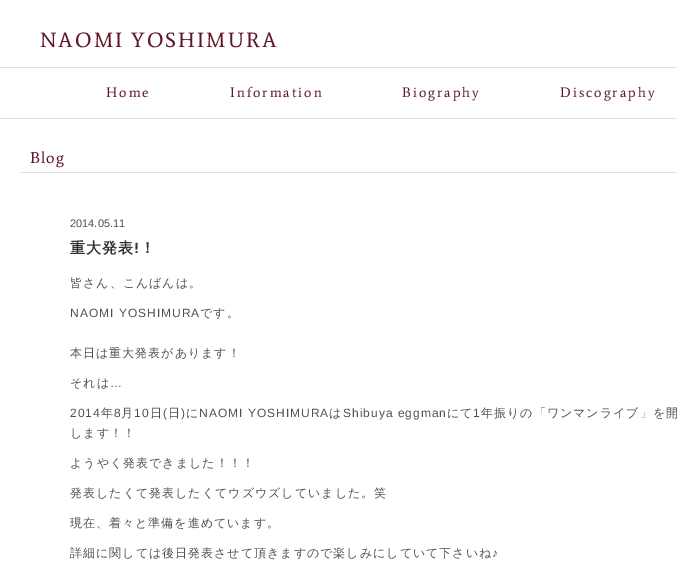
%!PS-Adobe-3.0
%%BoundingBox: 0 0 677 565
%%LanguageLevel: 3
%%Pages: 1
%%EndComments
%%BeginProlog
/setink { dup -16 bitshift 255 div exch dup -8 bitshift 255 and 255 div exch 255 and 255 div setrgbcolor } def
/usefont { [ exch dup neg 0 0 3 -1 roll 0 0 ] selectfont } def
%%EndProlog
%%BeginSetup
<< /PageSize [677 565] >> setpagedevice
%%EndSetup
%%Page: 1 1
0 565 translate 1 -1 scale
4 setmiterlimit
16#FFFFFF setink
0 0 677 565 rectfill
/Average-Regular 21 usefont
16#5F1729 setink
40 47 moveto 2 0 (NAOMI YOSHIMURA) ashow
16#E7DCDF setink
0 67 677 1 rectfill
0 118 677 1 rectfill
/Average-Regular 14 usefont
16#5F1729 setink
106 97 moveto 2 0 (Home) ashow
230 97 moveto 2 0 (Information) ashow
402 97 moveto 2 0 (Biography) ashow
560 97 moveto 2 0 (Discography) ashow
16#E7DCDF setink
20 172 657 1 rectfill
/Average-Regular 16 usefont
16#5F1729 setink
30 163 moveto 1 0 (Blog) ashow
/LiberationSans-Regular 11 usefont
16#505050 setink
70 227 moveto (2014.05.11) show
/WenQuanYiZenHei-Bold 15 usefont
16#323232 setink
70 253 moveto 1 0 (重大発表) ashow
/LiberationSans-Bold 15 usefont
134 253 moveto 1 0 (!) ashow
/WenQuanYiZenHei-Bold 15 usefont
140 253 moveto 1 0 (！) ashow
/WenQuanYiZenHei-Medium 12 usefont
16#505050 setink
70 287 moveto 1 0 (皆さん、こんばんは。) ashow
/LiberationSans-Regular 12 usefont
70 317 moveto 1 0 (NAOMI YOSHIMURA) ashow
/WenQuanYiZenHei-Medium 12 usefont
200 317 moveto 1 0 (です。) ashow
70 357 moveto 1 0 (本日は重大発表があります！) ashow
70 387 moveto 1 0 (それは) ashow
/LiberationSans-Regular 12 usefont
110 387 moveto 1 0 (…) ashow
70 417 moveto 1 0 (2014) ashow
/WenQuanYiZenHei-Medium 12 usefont
101 417 moveto 1 0 (年) ashow
/LiberationSans-Regular 12 usefont
114 417 moveto 1 0 (8) ashow
/WenQuanYiZenHei-Medium 12 usefont
121 417 moveto 1 0 (月) ashow
/LiberationSans-Regular 12 usefont
134 417 moveto 1 0 (10) ashow
/WenQuanYiZenHei-Medium 12 usefont
150 417 moveto 1 0 (日) ashow
/LiberationSans-Regular 12 usefont
163 417 moveto 1 0 (\() ashow
/WenQuanYiZenHei-Medium 12 usefont
168 417 moveto 1 0 (日) ashow
/LiberationSans-Regular 12 usefont
181 417 moveto 1 0 (\)) ashow
/WenQuanYiZenHei-Medium 12 usefont
186 417 moveto 1 0 (に) ashow
/LiberationSans-Regular 12 usefont
199 417 moveto 1 0 (NAOMI YOSHIMURA) ashow
/WenQuanYiZenHei-Medium 12 usefont
329 417 moveto 1 0 (は) ashow
/LiberationSans-Regular 12 usefont
343 417 moveto 1 0 (Shibuya eggman) ashow
/WenQuanYiZenHei-Medium 12 usefont
447 417 moveto 1 0 (にて) ashow
/LiberationSans-Regular 12 usefont
473 417 moveto 1 0 (1) ashow
/WenQuanYiZenHei-Medium 12 usefont
481 417 moveto 1 0 (年振りの「ワンマンライブ」を開) ashow
70 437 moveto 1 0 (します！！) ashow
70 467 moveto 1 0 (ようやく発表できました！！！) ashow
70 497 moveto 1 0 (発表したくて発表したくてウズウズしていました。笑) ashow
70 527 moveto 1 0 (現在、着々と準備を進めています。) ashow
70 557 moveto 1 0 (詳細に関しては後日発表させて頂きますので楽しみにしていて下さいね) ashow
/LiberationSans-Regular 12 usefont
492 557 moveto 1 0 (♪) ashow
showpage
%%EOF
